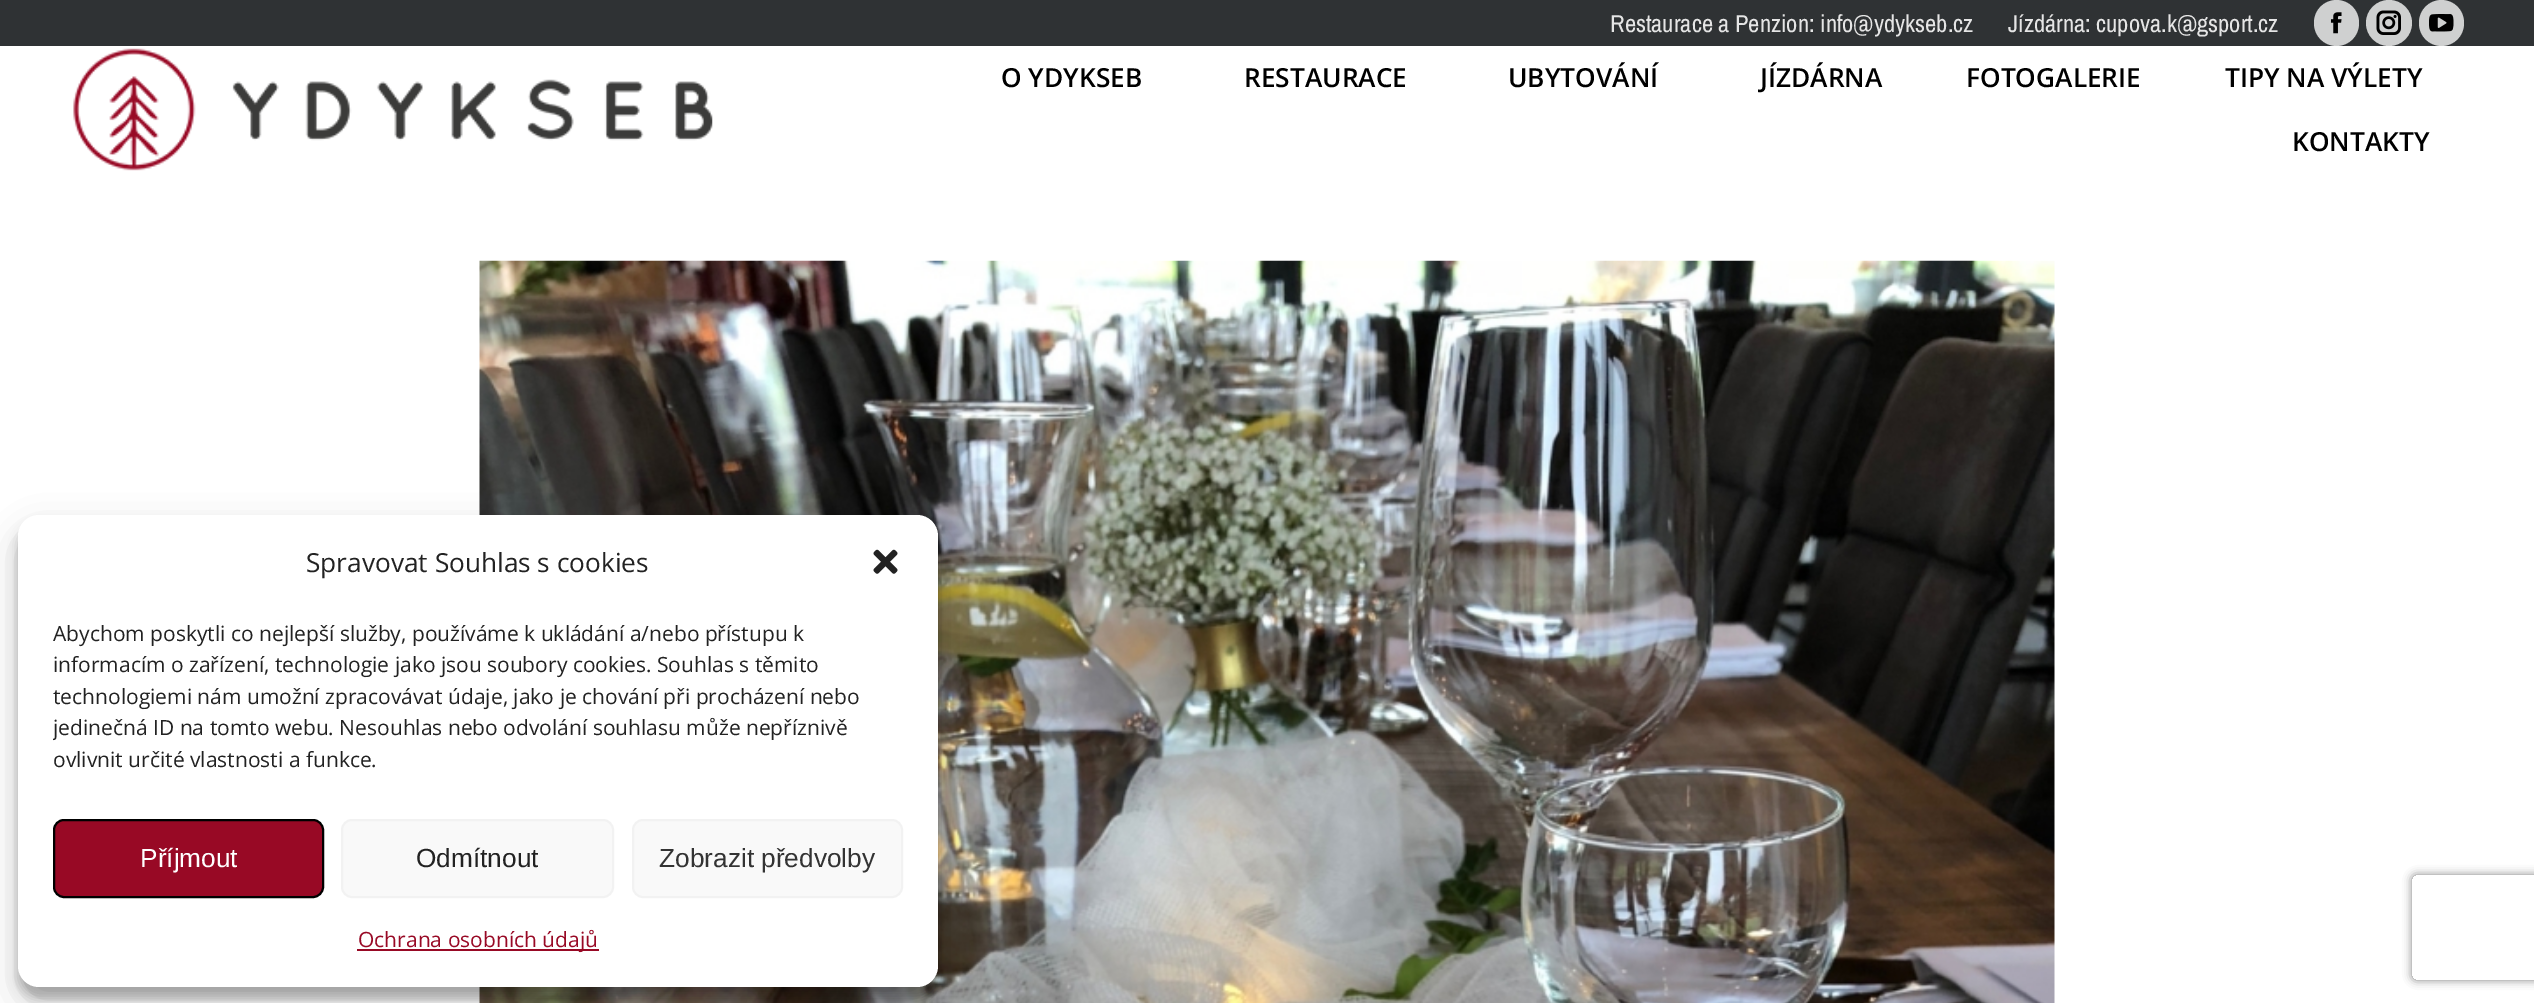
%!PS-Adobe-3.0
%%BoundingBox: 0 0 2534 1003
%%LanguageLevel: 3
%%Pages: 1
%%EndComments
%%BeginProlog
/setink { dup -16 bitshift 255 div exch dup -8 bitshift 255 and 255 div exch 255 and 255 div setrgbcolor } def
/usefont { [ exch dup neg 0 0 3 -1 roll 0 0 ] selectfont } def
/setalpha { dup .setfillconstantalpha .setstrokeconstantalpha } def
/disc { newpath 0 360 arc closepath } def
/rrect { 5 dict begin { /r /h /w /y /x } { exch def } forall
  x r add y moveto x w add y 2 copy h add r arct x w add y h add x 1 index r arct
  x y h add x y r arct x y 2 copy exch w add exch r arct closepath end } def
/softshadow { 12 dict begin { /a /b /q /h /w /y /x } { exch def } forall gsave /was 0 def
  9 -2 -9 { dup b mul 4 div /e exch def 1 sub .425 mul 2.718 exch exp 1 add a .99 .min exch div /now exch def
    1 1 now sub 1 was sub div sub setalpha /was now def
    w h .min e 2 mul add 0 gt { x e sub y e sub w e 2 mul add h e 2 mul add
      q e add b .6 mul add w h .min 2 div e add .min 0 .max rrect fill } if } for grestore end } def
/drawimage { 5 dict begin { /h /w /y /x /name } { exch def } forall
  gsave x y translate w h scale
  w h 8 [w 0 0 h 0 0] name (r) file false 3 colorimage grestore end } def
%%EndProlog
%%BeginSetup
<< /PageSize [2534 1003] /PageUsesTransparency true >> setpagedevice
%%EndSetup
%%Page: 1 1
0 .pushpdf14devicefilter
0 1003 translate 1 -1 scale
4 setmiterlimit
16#FFFFFF setink
0 0 2534 1003 rectfill
16#2F3234 setink
0 0 2534 46 rectfill
/ArchivoNarrow-Regular 24.5 usefont
16#E5E5E5 setink
1610 32 moveto (Restaurace a Penzion: info@ydykseb.cz) show
2008 32 moveto (Jízdárna: cupova.k@gsport.cz) show
16#CFD0D0 setink
2314 0 45 46 22.5 rrect fill
(img1.raw) 2330 12 12 22 drawimage
2389 23 23 disc fill
(img2.raw) 2376 10 25 25 drawimage
2419 0 45 46 22.5 rrect fill
(img3.raw) 2429 14 25 18 drawimage
(img4.raw) 73 48 640 123 drawimage
/OpenSans-SemiBold 26.25 usefont
16#000000 setink
[
    [(O YDYKSEB) 1001 87]
    [(RESTAURACE) 1244 87]
    [(UBYTOVÁNÍ) 1508 87]
    [(JÍZDÁRNA) 1760 87]
    [(FOTOGALERIE) 1966 87]
    [(TIPY NA VÝLETY) 2225 87]
    [(KONTAKTY) 2292 151]
] { aload pop moveto show } forall
(img5.raw) 479 260 1576 743 drawimage
18 525 920 473 21 5 0.23 softshadow
18 532 920 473 21 17.5 0.19 softshadow
16#FFFFFF setink
18 515 920 472 21 rrect fill
/OpenSans-Regular 26.25 usefont
16#222222 setink
306 572 moveto (Spravovat Souhlas s cookies) show
(img6.raw) 873 549 25 25 drawimage
/OpenSans-Regular 21 usefont
[
    [(Abychom poskytli co nejlepší služby, používáme k ukládání a/nebo přístupu k) 53 641]
    [(informacím o zařízení, technologie jako jsou soubory cookies. Souhlas s těmito) 53 672]
    [(technologiemi nám umožní zpracovávat údaje, jako je chování při procházení nebo) 53 704]
] { aload pop moveto show } forall
gsave
53 618 850 166 rectclip
53 735 moveto (jedinečná ID na tomto webu. Nesouhlas nebo odvolání souhlasu může nepříznivě) show
grestore
53 767 moveto (ovlivnit určité vlastnosti a funkce.) show
16#980925 setink
54 820 269 77 10 rrect gsave fill grestore
16#000000 setink
2 setlinewidth
stroke
/LiberationSans-Regular 26.25 usefont
16#FFFFFF setink
140 867 moveto (Příjmout) show
16#F9F9F9 setink
342 820 271 77 10 rrect gsave fill grestore
16#F2F2F2 setink
stroke
16#222222 setink
416 867 moveto (Odmítnout) show
16#F9F9F9 setink
633 820 269 77 10 rrect gsave fill grestore
16#F2F2F2 setink
stroke
16#333333 setink
659 867 moveto (Zobrazit předvolby) show
16#980925 setink
357 949 242 2 rectfill
/OpenSans-Regular 21 usefont
358 947 moveto (Ochrana osobních údajů) show
gsave
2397 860 moveto 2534 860 lineto 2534 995 lineto 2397 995 lineto closepath 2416 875 moveto 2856 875 lineto 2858 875 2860 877 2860 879 curveto 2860 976 lineto 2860 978 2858 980 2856 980 curveto 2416 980 lineto 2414 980 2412 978 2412 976 curveto 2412 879 lineto 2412 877 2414 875 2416 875 curveto closepath eoclip newpath
16#808080 setink
2412 875 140 105 4 4.5 1 softshadow
grestore
.poppdf14devicefilter showpage
%%EOF
